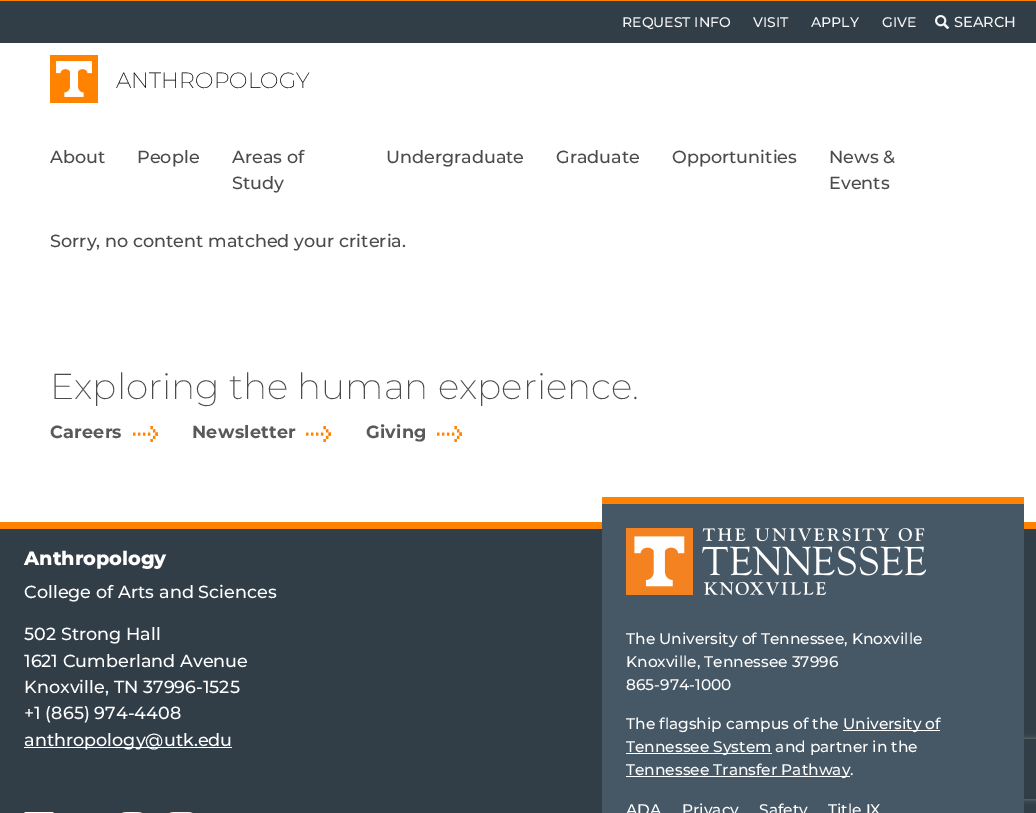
%!PS-Adobe-3.0
%%BoundingBox: 0 0 1036 813
%%LanguageLevel: 3
%%Pages: 1
%%EndComments
%%BeginProlog
/setink { 3 { 255 div 3 1 roll } repeat setrgbcolor } def
/usefont { [ exch dup neg 0 0 3 -1 roll 0 0 ] selectfont } def
/drawtext { setink usefont moveto show } def
/fillbox { setink rectfill } def
/setalpha { dup .setfillconstantalpha .setstrokeconstantalpha } def
/rrect { 5 dict begin { /r /h /w /y /x } { exch def } forall
  x r add y moveto x w add y 2 copy h add r arct x w add y h add x 1 index r arct
  x y h add x y r arct x y 2 copy exch w add exch r arct closepath end } def
/softshadow { 12 dict begin { /a /b /q /h /w /y /x } { exch def } forall gsave /was 0 def
  9 -2 -9 { dup b mul 4 div /e exch def 1 sub .425 mul 2.718 exch exp 1 add a .99 .min exch div /now exch def
    1 1 now sub 1 was sub div sub setalpha /was now def
    w h .min e 2 mul add 0 gt { x e sub y e sub w e 2 mul add h e 2 mul add
      q e add b .6 mul add w h .min 2 div e add .min 0 .max rrect fill } if } for grestore end } def
/drawimage { 5 dict begin { /h /w /y /x /name } { exch def } forall
  gsave x y translate w h scale
  w h 8 [w 0 0 h 0 0] name (r) file false 3 colorimage grestore end } def
%%EndProlog
%%BeginSetup
<< /PageSize [1036 813] /PageUsesTransparency true >> setpagedevice
%%EndSetup
%%Page: 1 1
0 .pushpdf14devicefilter
0 813 translate 1 -1 scale
4 setmiterlimit
0 0 1036 813 255 255 255 fillbox
0 1 1036 42 49 62 72 fillbox
0 0 1036 1 255 130 0 fillbox
(REQUEST INFO) 622 27 /Montserrat-Medium 14 246 246 246 drawtext
(VISIT) 753 27 /Montserrat-Medium 14 246 246 246 drawtext
(APPLY) 811 27 /Montserrat-Medium 14 246 246 246 drawtext
(GIVE) 882 27 /Montserrat-Medium 14 246 246 246 drawtext
(assets/img1.rgb) 935 15 15 14 drawimage
(SEARCH) 954 27 /Montserrat-Medium 14.5 246 246 246 drawtext
(assets/img2.rgb) 50 55 48 48 drawimage
(ANTHROPOLOGY) 116 88 /Montserrat-ExtraLight 22 0 0 0 drawtext
(About) 50 163 /Montserrat-Medium 17.6 75 75 75 drawtext
(People) 137 163 /Montserrat-Medium 17.6 75 75 75 drawtext
(Areas of) 232 163 /Montserrat-Medium 17.6 75 75 75 drawtext
(Study) 232 189 /Montserrat-Medium 17.6 75 75 75 drawtext
(Undergraduate) 386 163 /Montserrat-Medium 17.6 75 75 75 drawtext
(Graduate) 556 163 /Montserrat-Medium 17.6 75 75 75 drawtext
(Opportunities) 672 163 /Montserrat-Medium 17.6 75 75 75 drawtext
(News &) 829 163 /Montserrat-Medium 17.6 75 75 75 drawtext
(Events) 829 189 /Montserrat-Medium 17.6 75 75 75 drawtext
(Sorry, no content matched your criteria.) 50 247 /Montserrat-Medium 17.6 75 75 75 drawtext
(Exploring the human experience.) 50 399 /Montserrat-ExtraLight 36 75 75 75 drawtext
/Montserrat-Bold 17.6 usefont
88 89 91 setink
50 438 moveto 0.25 0 (Careers) ashow
(assets/img3.rgb) 133 426 25 16 drawimage
192 438 moveto 0.25 0 (Newsletter) ashow
(assets/img3.rgb) 306 426 25 16 drawimage
366 438 moveto 0.25 0 (Giving) ashow
(assets/img3.rgb) 437 426 25 16 drawimage
0 529 1036 284 49 62 72 fillbox
0 522 1036 7 255 130 0 fillbox
(Anthropology) 24 565 /Montserrat-ExtraBold 19.25 255 255 255 drawtext
(College of Arts and Sciences) 24 598 /Montserrat-Medium 17.6 255 255 255 drawtext
(502 Strong Hall) 24 640 /Montserrat-Medium 17.6 255 255 255 drawtext
(1621 Cumberland Avenue) 24 667 /Montserrat-Medium 17.6 255 255 255 drawtext
(Knoxville, TN 37996-1525) 24 693 /Montserrat-Medium 17.6 255 255 255 drawtext
(+1 \(865\) 974-4408) 24 719 /Montserrat-Medium 17.6 255 255 255 drawtext
24 747 208 1 255 255 255 fillbox
(anthropology@utk.edu) 24 746 /Montserrat-Medium 17.6 255 255 255 drawtext
(assets/img4.rgb) 24 812 30 1 drawimage
(assets/img5.rgb) 122 812 20 1 drawimage
(assets/img6.rgb) 169 812 24 1 drawimage
gsave
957 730 moveto 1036 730 lineto 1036 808 lineto 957 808 lineto closepath 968 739 moveto 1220 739 lineto 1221 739 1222 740 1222 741 curveto 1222 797 lineto 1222 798 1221 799 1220 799 curveto 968 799 lineto 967 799 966 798 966 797 curveto 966 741 lineto 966 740 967 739 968 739 curveto closepath eoclip newpath
128 128 128 setink
966 739 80 60 2 2.5 1 softshadow
grestore
602 504 422 309 70 88 102 fillbox
602 497 422 7 255 130 0 fillbox
(assets/img7.rgb) 626 528 300 67 drawimage
(The University of Tennessee, Knoxville) 626 644 /Montserrat-Medium 15.4 255 255 255 drawtext
(Knoxville, Tennessee 37996) 626 667 /Montserrat-Medium 15.4 255 255 255 drawtext
(865-974-1000) 626 690 /Montserrat-Medium 15.4 255 255 255 drawtext
(The flagship campus of the) 626 729 /Montserrat-Medium 15.4 255 255 255 drawtext
843 730 97 1 255 255 255 fillbox
(University of) 843 729 /Montserrat-Medium 15.4 255 255 255 drawtext
626 753 146 1 255 255 255 fillbox
(Tennessee System and partner in the) 626 752 /Montserrat-Medium 15.4 255 255 255 drawtext
626 776 224 1 255 255 255 fillbox
(Tennessee Transfer Pathway.) 626 775 /Montserrat-Medium 15.4 255 255 255 drawtext
(ADA) 626 815 /Montserrat-Medium 15.4 255 255 255 drawtext
(Privacy) 682 815 /Montserrat-Medium 15.4 255 255 255 drawtext
(Safety) 759 815 /Montserrat-Medium 15.4 255 255 255 drawtext
(Title IX) 828 815 /Montserrat-Medium 15.4 255 255 255 drawtext
.poppdf14devicefilter showpage
%%EOF
